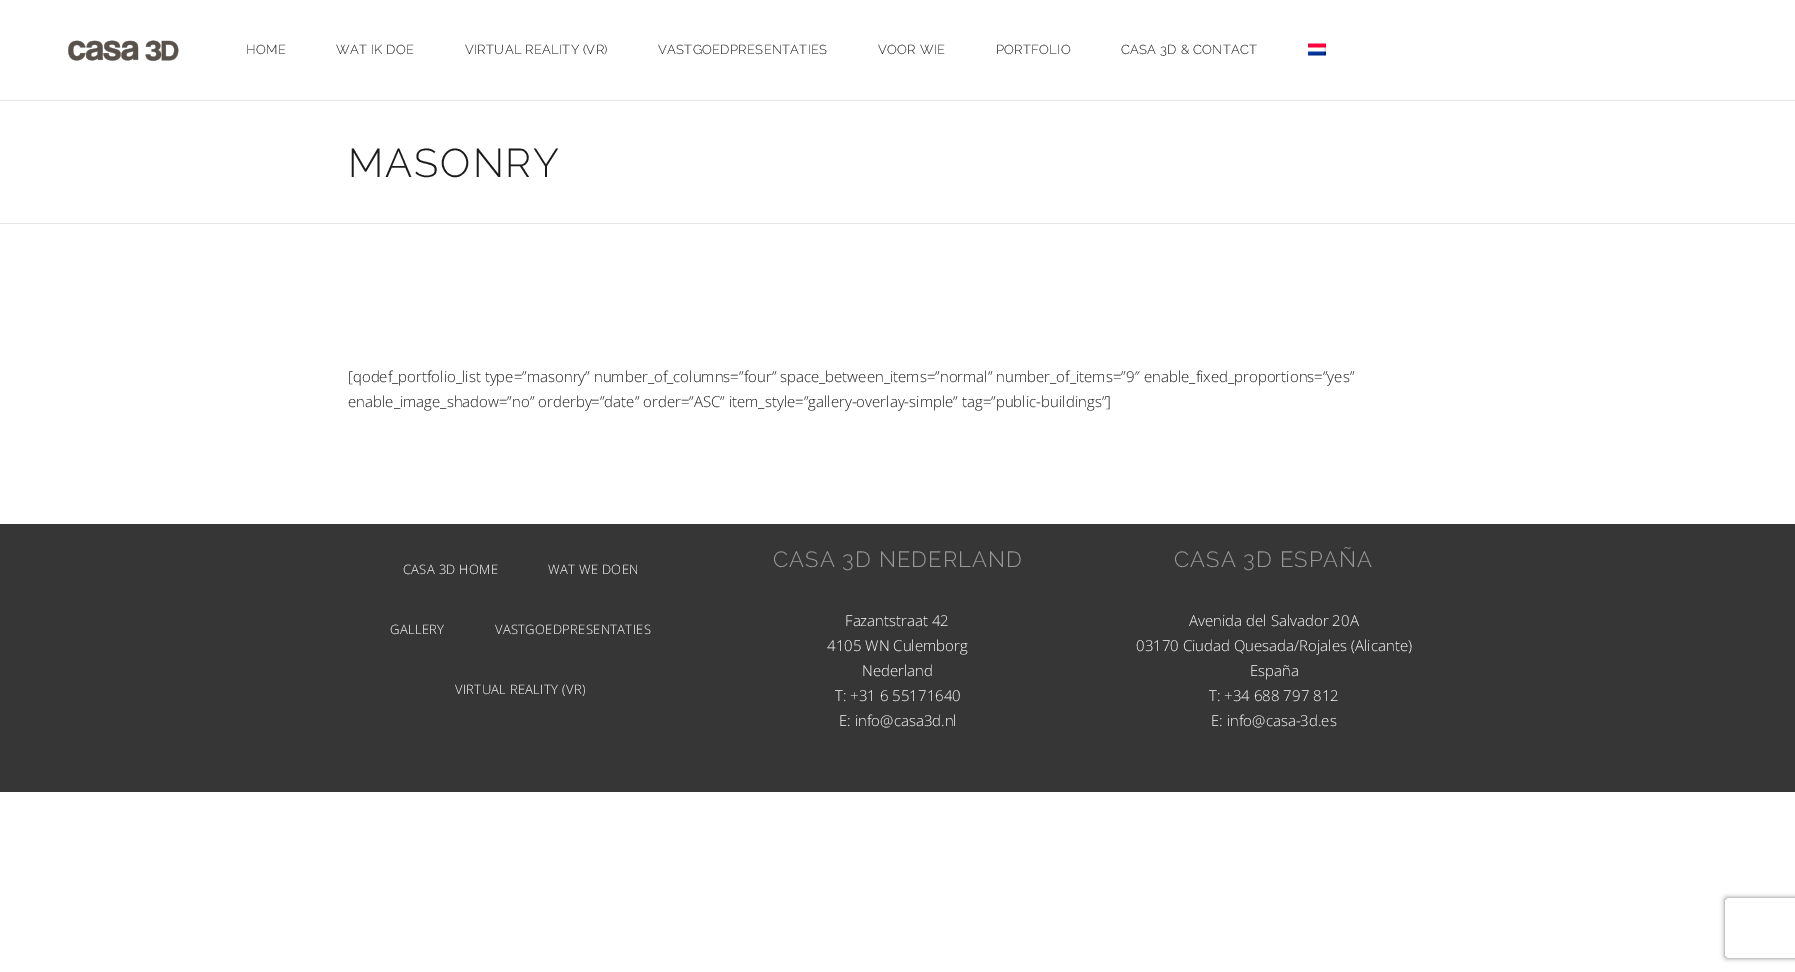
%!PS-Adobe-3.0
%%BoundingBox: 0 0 1795 972
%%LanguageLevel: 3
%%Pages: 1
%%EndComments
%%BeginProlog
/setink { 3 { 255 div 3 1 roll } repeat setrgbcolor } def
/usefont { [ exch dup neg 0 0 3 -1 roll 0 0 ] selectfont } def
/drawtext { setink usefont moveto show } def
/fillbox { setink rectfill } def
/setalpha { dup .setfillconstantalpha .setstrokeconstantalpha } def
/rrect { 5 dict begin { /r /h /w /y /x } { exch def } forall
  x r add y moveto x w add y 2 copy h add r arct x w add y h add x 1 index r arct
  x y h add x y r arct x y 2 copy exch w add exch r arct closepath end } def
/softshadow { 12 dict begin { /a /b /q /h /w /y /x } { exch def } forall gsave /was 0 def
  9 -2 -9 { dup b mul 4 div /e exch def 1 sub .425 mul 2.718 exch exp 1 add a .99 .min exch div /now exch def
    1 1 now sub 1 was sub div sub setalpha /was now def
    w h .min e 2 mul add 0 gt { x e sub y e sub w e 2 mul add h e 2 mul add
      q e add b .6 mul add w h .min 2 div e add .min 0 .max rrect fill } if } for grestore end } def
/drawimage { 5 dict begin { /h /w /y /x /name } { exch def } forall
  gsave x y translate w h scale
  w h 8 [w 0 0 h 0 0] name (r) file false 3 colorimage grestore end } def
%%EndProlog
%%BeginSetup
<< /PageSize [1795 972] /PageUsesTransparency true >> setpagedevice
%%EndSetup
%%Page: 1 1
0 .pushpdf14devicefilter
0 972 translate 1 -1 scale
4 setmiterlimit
0 0 1795 972 255 255 255 fillbox
(assets/img1.rgb) 68 40 111 21 drawimage
/Raleway-Light 13 usefont
27 27 27 setink
246 54 moveto 0.3 0 (HOME) ashow
336 54 moveto 0.3 0 (WAT IK DOE) ashow
465 54 moveto 0.3 0 (VIRTUAL REALITY \(VR\)) ashow
658 54 moveto 0.3 0 (VASTGOEDPRESENTATIES) ashow
878 54 moveto 0.3 0 (VOOR WIE) ashow
996 54 moveto 0.3 0 (PORTFOLIO) ashow
1121 54 moveto 0.3 0 (CASA 3D & CONTACT) ashow
(assets/img2.rgb) 1308 43 18 13 drawimage
0 100 1795 1 229 229 229 fillbox
0 223 1795 1 229 229 229 fillbox
/Raleway-Light 40 usefont
27 27 27 setink
348 177 moveto 2 0 (MASONRY) ashow
([qodef_portfolio_list type=”masonry” number_of_columns=”four” space_between_items=”normal” number_of_items=”9″ enable_fixed_proportions=”yes”) 348 382 /OpenSans-Light 15 27 27 27 drawtext
(enable_image_shadow=”no” orderby=”date” order=”ASC” item_style=”gallery-overlay-simple” tag=”public-buildings”]) 348 407 /OpenSans-Light 15 27 27 27 drawtext
0 524 1795 268 54 54 54 fillbox
/OpenSans-Light 13 usefont
255 255 255 setink
403 574 moveto 0.3 0 (CASA 3D HOME) ashow
548 574 moveto 0.3 0 (WAT WE DOEN) ashow
390 634 moveto 0.3 0 (GALLERY) ashow
495 634 moveto 0.3 0 (VASTGOEDPRESENTATIES) ashow
455 694 moveto 0.3 0 (VIRTUAL REALITY \(VR\)) ashow
/Raleway-Light 22 usefont
153 153 153 setink
773 567 moveto 1.1 0 (CASA 3D NEDERLAND) ashow
(Fazantstraat 42) 845 626 /OpenSans-Light 15 255 255 255 drawtext
(4105 WN Culemborg) 827 651 /OpenSans-Light 15 255 255 255 drawtext
(Nederland) 862 676 /OpenSans-Light 15 255 255 255 drawtext
(T: +31 6 55171640) 835 701 /OpenSans-Light 15 255 255 255 drawtext
(E: info@casa3d.nl) 839 726 /OpenSans-Light 15 255 255 255 drawtext
/Raleway-Light 22 usefont
153 153 153 setink
1174 567 moveto 1.1 0 (CASA 3D ESPAÑA) ashow
(Avenida del Salvador 20A) 1189 626 /OpenSans-Light 15 255 255 255 drawtext
(03170 Ciudad Quesada/Rojales \(Alicante\)) 1136 651 /OpenSans-Light 15 255 255 255 drawtext
(España) 1250 676 /OpenSans-Light 15 255 255 255 drawtext
(T: +34 688 797 812) 1209 701 /OpenSans-Light 15 255 255 255 drawtext
(E: info@casa-3d.es) 1211 726 /OpenSans-Light 15 255 255 255 drawtext
gsave
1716 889 moveto 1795 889 lineto 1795 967 lineto 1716 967 lineto closepath 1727 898 moveto 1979 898 lineto 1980 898 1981 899 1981 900 curveto 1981 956 lineto 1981 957 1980 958 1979 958 curveto 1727 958 lineto 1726 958 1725 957 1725 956 curveto 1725 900 lineto 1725 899 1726 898 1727 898 curveto closepath eoclip newpath
128 128 128 setink
1725 898 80 60 2 2.5 1 softshadow
grestore
.poppdf14devicefilter showpage
%%EOF
